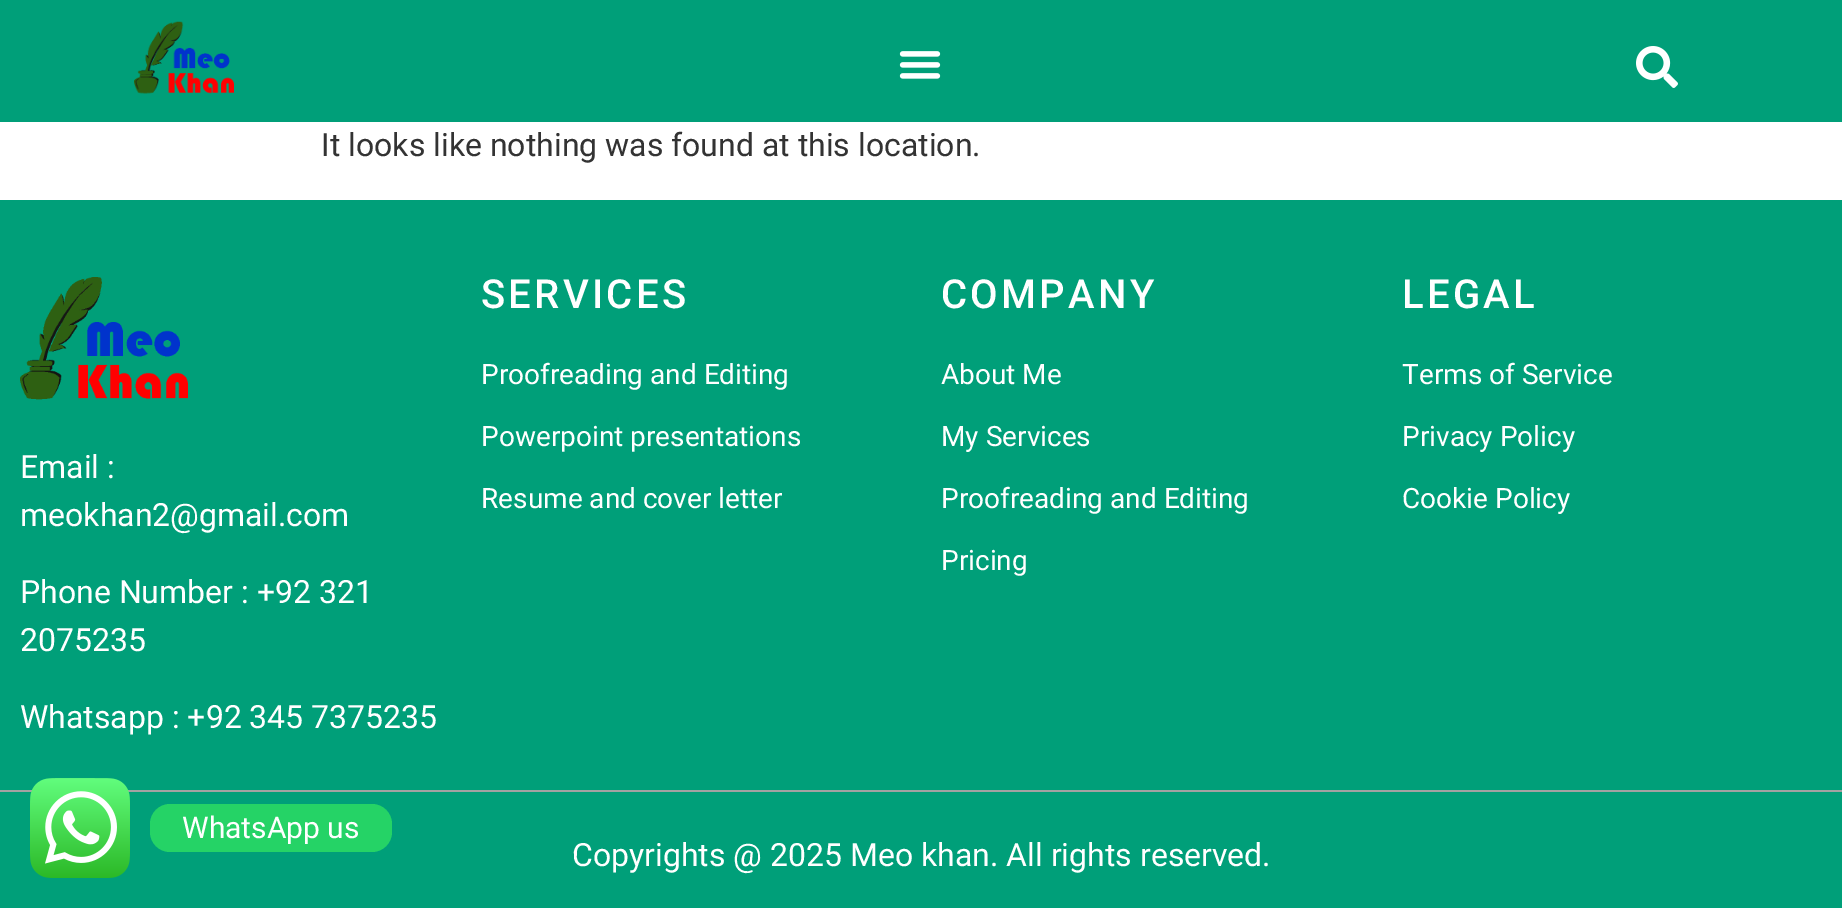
%!PS-Adobe-3.0
%%BoundingBox: 0 0 1842 908
%%LanguageLevel: 3
%%Pages: 1
%%EndComments
%%BeginProlog
/setink { 3 { 255 div 3 1 roll } repeat setrgbcolor } def
/usefont { [ exch dup neg 0 0 3 -1 roll 0 0 ] selectfont } def
/drawtext { setink usefont moveto show } def
/fillbox { setink rectfill } def
/rrect { 5 dict begin { /r /h /w /y /x } { exch def } forall
  x r add y moveto x w add y 2 copy h add r arct x w add y h add x 1 index r arct
  x y h add x y r arct x y 2 copy exch w add exch r arct closepath end } def
/drawimage { 5 dict begin { /h /w /y /x /name } { exch def } forall
  gsave x y translate w h scale
  w h 8 [w 0 0 h 0 0] name (r) file false 3 colorimage grestore end } def
%%EndProlog
%%BeginSetup
<< /PageSize [1842 908] >> setpagedevice
%%EndSetup
%%Page: 1 1
0 908 translate 1 -1 scale
4 setmiterlimit
0 0 1842 908 255 255 255 fillbox
0 0 1842 122 0 159 121 fillbox
(assets/img1.rgb) 134 21 100 73 drawimage
(assets/img2.rgb) 899 51 42 28 drawimage
(assets/img3.rgb) 1636 46 42 42 drawimage
(It looks like nothing was found at this location.) 321 156 /Roboto-Regular 32 51 51 51 drawtext
0 200 1842 590 0 159 121 fillbox
/Roboto-Medium 40 usefont
255 255 255 setink
481 308 moveto 3.25 0 (SERVICES) ashow
(Proofreading and Editing) 481 384 /Roboto-Regular 28 255 255 255 drawtext
(Powerpoint presentations) 481 446 /Roboto-Regular 28 255 255 255 drawtext
(Resume and cover letter) 481 508 /Roboto-Regular 28 255 255 255 drawtext
/Roboto-Medium 40 usefont
941 308 moveto 3.25 0 (COMPANY) ashow
(About Me) 941 384 /Roboto-Regular 28 255 255 255 drawtext
(My Services) 941 446 /Roboto-Regular 28 255 255 255 drawtext
(Proofreading and Editing) 941 508 /Roboto-Regular 28 255 255 255 drawtext
(Pricing) 941 570 /Roboto-Regular 28 255 255 255 drawtext
/Roboto-Medium 40 usefont
1402 308 moveto 3.25 0 (LEGAL) ashow
(Terms of Service) 1402 384 /Roboto-Regular 28 255 255 255 drawtext
(Privacy Policy) 1402 446 /Roboto-Regular 28 255 255 255 drawtext
(Cookie Policy) 1402 508 /Roboto-Regular 28 255 255 255 drawtext
(assets/img4.rgb) 20 277 168 123 drawimage
(Email :) 20 478 /Roboto-Regular 32 255 255 255 drawtext
(meokhan2@gmail.com) 20 526 /Roboto-Regular 32 255 255 255 drawtext
(Phone Number : +92 321) 20 603 /Roboto-Regular 32 255 255 255 drawtext
(2075235) 20 651 /Roboto-Regular 32 255 255 255 drawtext
(Whatsapp : +92 345 7375235) 20 728 /Roboto-Regular 32 255 255 255 drawtext
0 792 1842 116 0 159 121 fillbox
0 790 1842 2 162 162 162 fillbox
(Copyrights @ 2025 Meo khan. All rights reserved.) 572 866 /Roboto-Regular 32 255 255 255 drawtext
(assets/img5.rgb) 30 778 100 100 drawimage
37 211 102 setink
150 804 242 48 20 rrect fill
(WhatsApp us) 182 838 /Roboto-Regular 30 255 255 255 drawtext
showpage
%%EOF
